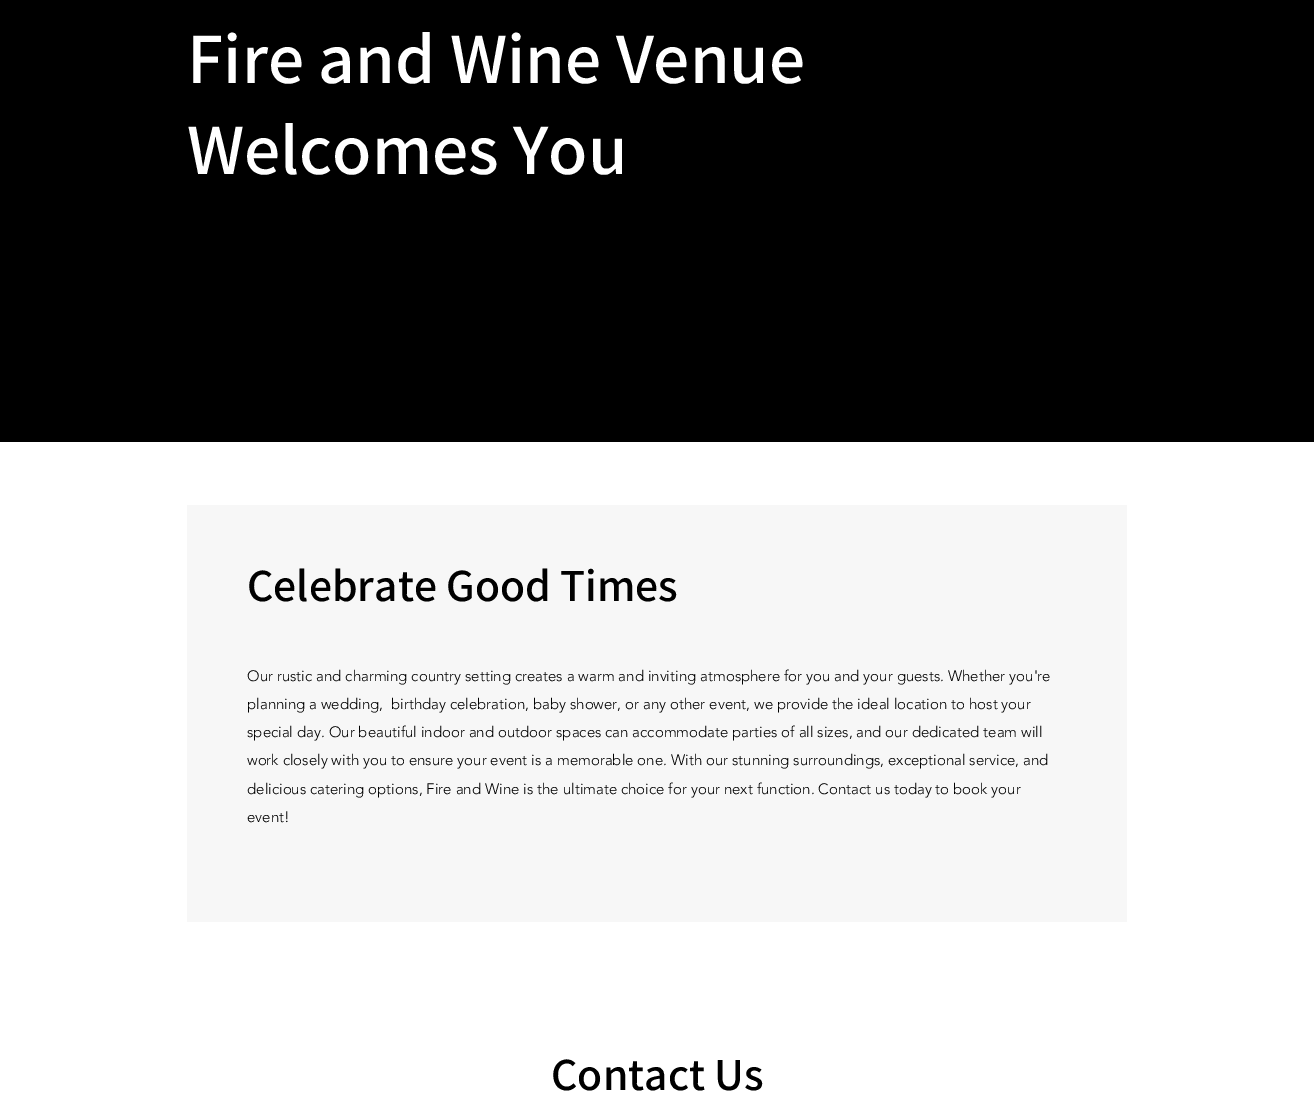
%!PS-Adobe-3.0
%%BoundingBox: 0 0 1314 1093
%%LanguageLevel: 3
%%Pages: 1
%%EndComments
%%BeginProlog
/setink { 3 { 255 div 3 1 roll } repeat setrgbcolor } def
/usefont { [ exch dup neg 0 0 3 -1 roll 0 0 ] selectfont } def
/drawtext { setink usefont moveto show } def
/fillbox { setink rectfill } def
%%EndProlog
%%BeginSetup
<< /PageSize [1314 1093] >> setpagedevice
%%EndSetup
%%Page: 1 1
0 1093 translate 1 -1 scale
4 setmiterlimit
0 0 1314 1093 255 255 255 fillbox
0 0 1314 442 0 0 0 fillbox
(Fire and Wine Venue) 187 83 /Assistant-SemiBold 72 255 255 255 drawtext
(Welcomes You) 187 174 /Assistant-SemiBold 72 255 255 255 drawtext
187 505 940 417 247 247 247 fillbox
(Celebrate Good Times) 247 601 /Assistant-SemiBold 46 0 0 0 drawtext
(Our rustic and charming country setting creates a warm and inviting atmosphere for you and your guests. Whether you're) 247 681 /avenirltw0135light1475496-Light 15 0 0 0 drawtext
(planning a wedding,  birthday celebration, baby shower, or any other event, we provide the ideal location to host your) 247 709 /avenirltw0135light1475496-Light 15 0 0 0 drawtext
(special day. Our beautiful indoor and outdoor spaces can accommodate parties of all sizes, and our dedicated team will) 247 737 /avenirltw0135light1475496-Light 15 0 0 0 drawtext
(work closely with you to ensure your event is a memorable one. With our stunning surroundings, exceptional service, and) 247 765 /avenirltw0135light1475496-Light 15 0 0 0 drawtext
(delicious catering options, Fire and Wine is the ultimate choice for your next function. Contact us today to book your) 247 794 /avenirltw0135light1475496-Light 15 0 0 0 drawtext
(event!) 247 822 /avenirltw0135light1475496-Light 15 0 0 0 drawtext
(Contact Us) 551 1090 /Assistant-SemiBold 46 0 0 0 drawtext
showpage
%%EOF
